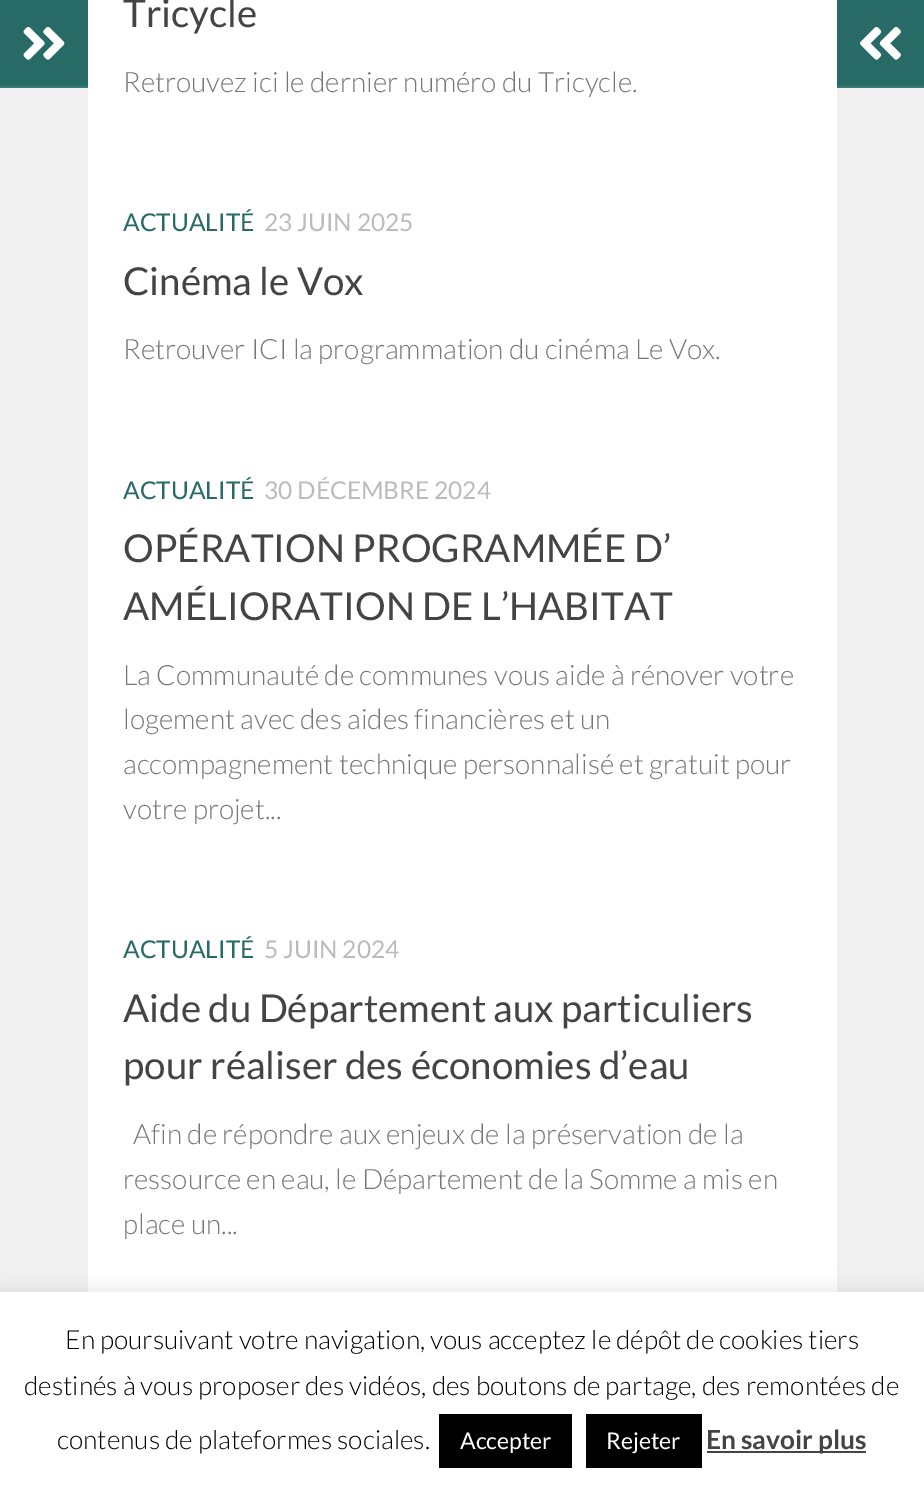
%!PS-Adobe-3.0
%%BoundingBox: 0 0 924 1488
%%LanguageLevel: 3
%%Pages: 1
%%EndComments
%%BeginProlog
/setink { 3 { 255 div 3 1 roll } repeat setrgbcolor } def
/usefont { [ exch dup neg 0 0 3 -1 roll 0 0 ] selectfont } def
/drawtext { setink usefont moveto show } def
/fillbox { setink rectfill } def
/setalpha { dup .setfillconstantalpha .setstrokeconstantalpha } def
/rrect { 5 dict begin { /r /h /w /y /x } { exch def } forall
  x r add y moveto x w add y 2 copy h add r arct x w add y h add x 1 index r arct
  x y h add x y r arct x y 2 copy exch w add exch r arct closepath end } def
/softshadow { 12 dict begin { /a /b /q /h /w /y /x } { exch def } forall gsave /was 0 def
  9 -2 -9 { dup b mul 4 div /e exch def 1 sub .425 mul 2.718 exch exp 1 add a .99 .min exch div /now exch def
    1 1 now sub 1 was sub div sub setalpha /was now def
    w h .min e 2 mul add 0 gt { x e sub y e sub w e 2 mul add h e 2 mul add
      q e add b .6 mul add w h .min 2 div e add .min 0 .max rrect fill } if } for grestore end } def
/drawimage { 5 dict begin { /h /w /y /x /name } { exch def } forall
  gsave x y translate w h scale
  w h 8 [w 0 0 h 0 0] name (r) file false 3 colorimage grestore end } def
%%EndProlog
%%BeginSetup
<< /PageSize [924 1488] /PageUsesTransparency true >> setpagedevice
%%EndSetup
%%Page: 1 1
0 .pushpdf14devicefilter
0 1488 translate 1 -1 scale
4 setmiterlimit
0 0 924 1488 255 255 255 fillbox
0 88 88 1204 240 240 240 fillbox
0 0 88 86 40 107 102 fillbox
0 86 88 2 62 122 117 fillbox
(assets/img1.rgb) 23 26 42 34 drawimage
(Tricycle) 123 27 /Lato-Regular 38.5 68 68 68 drawtext
(Retrouvez ici le dernier numéro du Tricycle.) 123 92 /Lato-Light 28 118 118 118 drawtext
(ACTUALITÉ) 123 231 /Lato-Regular 24.5 40 107 102 drawtext
(23 JUIN 2025) 264 231 /Lato-Regular 24.5 187 187 187 drawtext
(Cinéma le Vox) 123 295 /Lato-Regular 38.5 68 68 68 drawtext
(Retrouver ICI la programmation du cinéma Le Vox.) 123 359 /Lato-Light 28 118 118 118 drawtext
(ACTUALITÉ) 123 499 /Lato-Regular 24.5 40 107 102 drawtext
(30 DÉCEMBRE 2024) 264 499 /Lato-Regular 24.5 187 187 187 drawtext
(OPÉRATION PROGRAMMÉE D’) 123 562 /Lato-Regular 38.5 68 68 68 drawtext
(AMÉLIORATION DE L’HABITAT) 123 620 /Lato-Regular 38.5 68 68 68 drawtext
(La Communauté de communes vous aide à rénover votre) 123 685 /Lato-Light 28 118 118 118 drawtext
(logement avec des aides financières et un) 123 729 /Lato-Light 28 118 118 118 drawtext
(accompagnement technique personnalisé et gratuit pour) 123 774 /Lato-Light 28 118 118 118 drawtext
(votre projet...) 123 819 /Lato-Light 28 118 118 118 drawtext
(ACTUALITÉ) 123 958 /Lato-Regular 24.5 40 107 102 drawtext
(5 JUIN 2024) 264 958 /Lato-Regular 24.5 187 187 187 drawtext
(Aide du Département aux particuliers) 123 1022 /Lato-Regular 38.5 68 68 68 drawtext
(pour réaliser des économies d’eau) 123 1079 /Lato-Regular 38.5 68 68 68 drawtext
(Afin de répondre aux enjeux de la préservation de la) 133 1144 /Lato-Light 28 118 118 118 drawtext
(ressource en eau, le Département de la Somme a mis en) 123 1189 /Lato-Light 28 118 118 118 drawtext
(place un...) 123 1234 /Lato-Light 28 118 118 118 drawtext
837 0 87 86 40 107 102 fillbox
837 86 87 2 62 122 117 fillbox
(assets/img2.rgb) 860 26 41 34 drawimage
837 88 87 1204 240 240 240 fillbox
172 171 171 setink
0 1290 924 198 0 9 0.3 softshadow
0 1292 924 196 255 255 255 fillbox
(En poursuivant votre navigation, vous acceptez le dépôt de cookies tiers) 65 1349 /Lato-Light 26.25 0 0 0 drawtext
(destinés à vous proposer des vidéos, des boutons de partage, des remontées de) 24 1395 /Lato-Light 26.25 0 0 0 drawtext
(contenus de plateformes sociales.) 57 1449 /Lato-Light 26.25 0 0 0 drawtext
439 1414 133 54 0 0 0 fillbox
(Accepter) 460 1449 /Lato-Regular 23 255 255 255 drawtext
586 1414 116 54 0 0 0 fillbox
(Rejeter) 606 1449 /Lato-Regular 23 255 255 255 drawtext
707 1451 159 2 68 68 68 fillbox
(En savoir plus) 706 1449 /Lato-Bold 26.25 68 68 68 drawtext
.poppdf14devicefilter showpage
%%EOF
